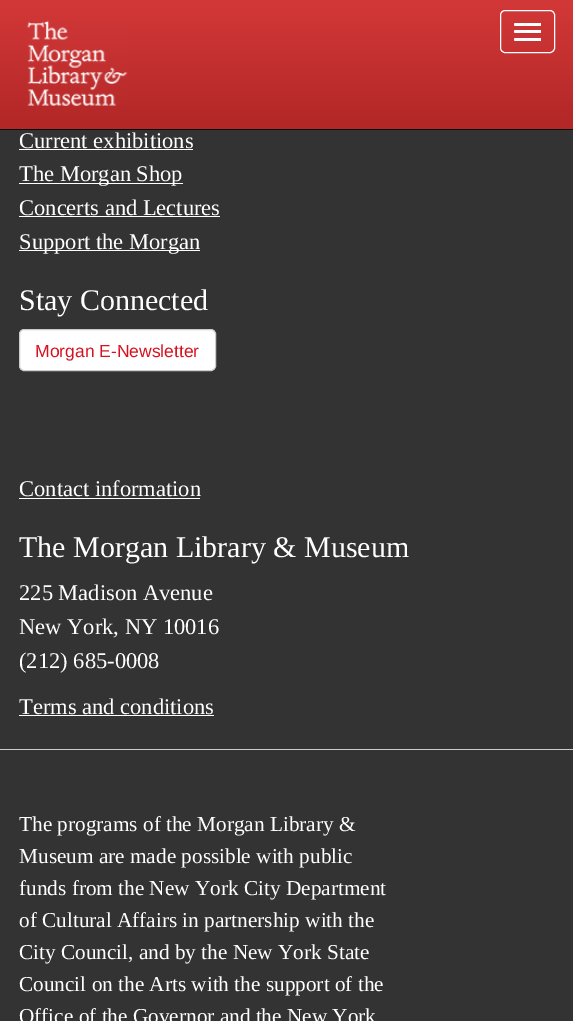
%!PS-Adobe-3.0
%%BoundingBox: 0 0 573 1021
%%LanguageLevel: 3
%%Pages: 1
%%EndComments
%%BeginProlog
/setink { 3 { 255 div 3 1 roll } repeat setrgbcolor } def
/usefont { [ exch dup neg 0 0 3 -1 roll 0 0 ] selectfont } def
/drawtext { setink usefont moveto show } def
/fillbox { setink rectfill } def
/rrect { 5 dict begin { /r /h /w /y /x } { exch def } forall
  x r add y moveto x w add y 2 copy h add r arct x w add y h add x 1 index r arct
  x y h add x y r arct x y 2 copy exch w add exch r arct closepath end } def
/drawimage { 5 dict begin { /h /w /y /x /name } { exch def } forall
  gsave x y translate w h scale
  w h 8 [w 0 0 h 0 0] name (r) file false 3 colorimage grestore end } def
%%EndProlog
%%BeginSetup
<< /PageSize [573 1021] >> setpagedevice
%%EndSetup
%%Page: 1 1
0 1021 translate 1 -1 scale
4 setmiterlimit
0 0 573 1021 51 51 51 fillbox
gsave 0 0 moveto 573 0 lineto 573 129 lineto 0 129 lineto closepath clip newpath
<< /ShadingType 2 /ColorSpace /DeviceRGB /Coords [287 0 287 129] /Extend [true true] /Function << /FunctionType 2 /Domain [0 1] /C0 [0.827 0.22 0.22] /C1 [0.698 0.153 0.153] /N 1 >> >> shfill grestore
0 129 573 1 9 9 9 fillbox
(assets/img1.rgb) 27 20 101 86 drawimage
255 255 255 setink
500.5 10.5 54 42 4.5 rrect stroke
514 23 27 3 1.5 rrect fill
515 23 26 3 255 255 255 fillbox
514 30 27 3 1.5 rrect fill
515 30 26 3 255 255 255 fillbox
514 38 27 3 1.5 rrect fill
515 38 26 3 255 255 255 fillbox
(Current exhibitions) 19 148 /LiberationSerif-Regular 22.5 255 255 255 drawtext
19 149 174 1 255 255 255 fillbox
19 183 164 1 255 255 255 fillbox
(The Morgan Shop) 19 181 /LiberationSerif-Regular 22.5 255 255 255 drawtext
(Concerts and Lectures) 19 215 /LiberationSerif-Regular 22.5 255 255 255 drawtext
19 216 201 1 255 255 255 fillbox
19 250 181 1 255 255 255 fillbox
(Support the Morgan) 19 249 /LiberationSerif-Regular 22.5 255 255 255 drawtext
(Stay Connected) 19 310 /LiberationSerif-Regular 30 255 255 255 drawtext
19.5 329.5 196 41 4.5 rrect gsave fill grestore
204 204 204 setink
stroke
(Morgan E-Newsletter) 35 357 /LiberationSans-Regular 17.5 214 18 31 drawtext
(Contact information) 19 496 /LiberationSerif-Regular 22.5 255 255 255 drawtext
19 498 181 1 255 255 255 fillbox
(The Morgan Library & Museum) 19 557 /LiberationSerif-Regular 30 255 255 255 drawtext
(225 Madison Avenue) 19 600 /LiberationSerif-Regular 22.5 255 255 255 drawtext
(New York, NY 10016) 19 634 /LiberationSerif-Regular 22.5 255 255 255 drawtext
(\(212\) 685-0008) 19 668 /LiberationSerif-Regular 22.5 255 255 255 drawtext
(Terms and conditions) 19 714 /LiberationSerif-Regular 22.5 255 255 255 drawtext
19 715 195 1 255 255 255 fillbox
0 749 573 1 204 204 204 fillbox
(The programs of the Morgan Library &) 19 831 /LiberationSerif-Regular 21.25 255 255 255 drawtext
(Museum are made possible with public) 19 863 /LiberationSerif-Regular 21.25 255 255 255 drawtext
(funds from the New York City Department) 19 895 /LiberationSerif-Regular 21.25 255 255 255 drawtext
(of Cultural Affairs in partnership with the) 19 927 /LiberationSerif-Regular 21.25 255 255 255 drawtext
(City Council, and by the New York State) 19 959 /LiberationSerif-Regular 21.25 255 255 255 drawtext
(Council on the Arts with the support of the) 19 991 /LiberationSerif-Regular 21.25 255 255 255 drawtext
(Office of the Governor and the New York) 19 1023 /LiberationSerif-Regular 21.25 255 255 255 drawtext
showpage
%%EOF
